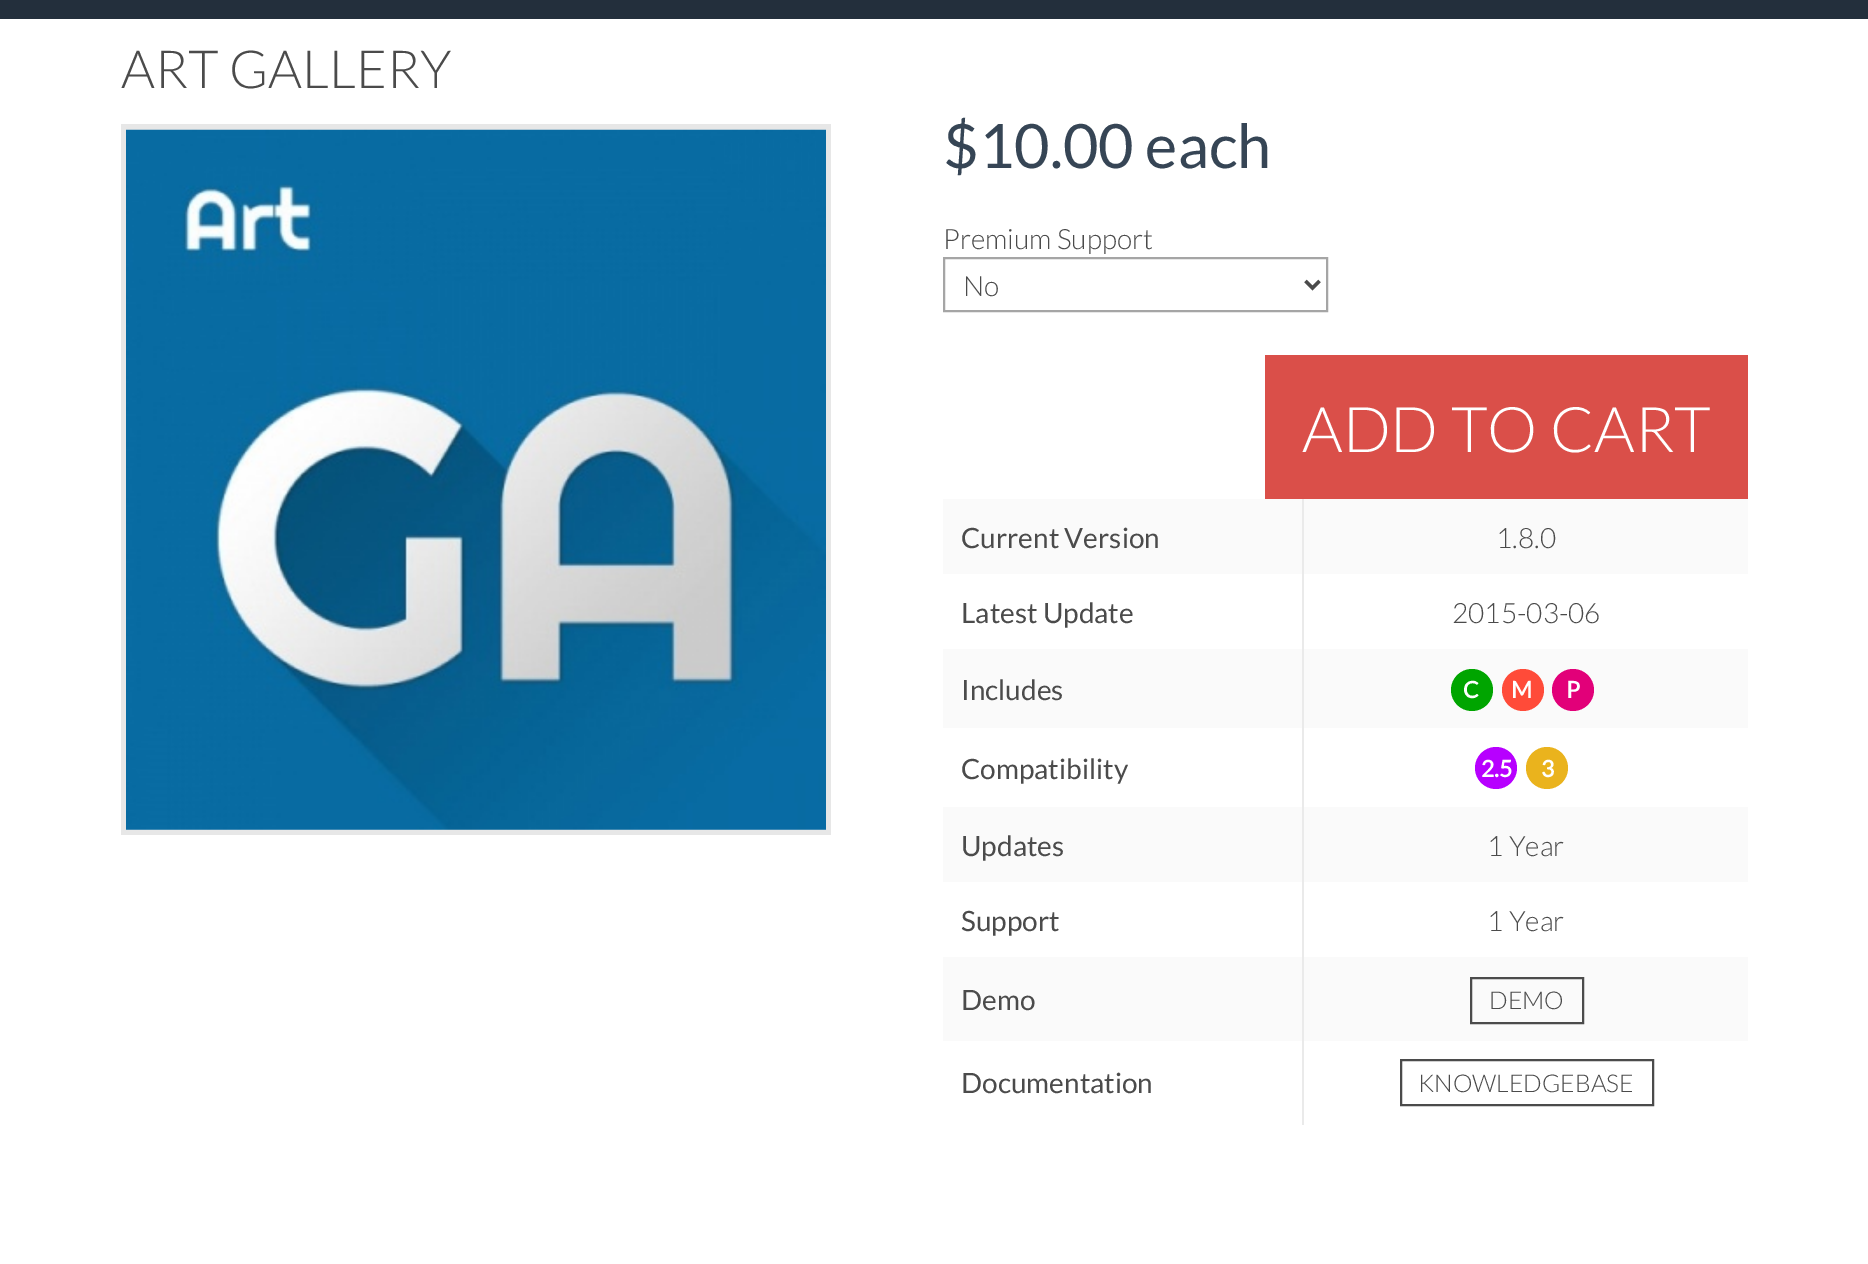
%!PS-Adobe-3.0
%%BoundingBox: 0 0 1868 1264
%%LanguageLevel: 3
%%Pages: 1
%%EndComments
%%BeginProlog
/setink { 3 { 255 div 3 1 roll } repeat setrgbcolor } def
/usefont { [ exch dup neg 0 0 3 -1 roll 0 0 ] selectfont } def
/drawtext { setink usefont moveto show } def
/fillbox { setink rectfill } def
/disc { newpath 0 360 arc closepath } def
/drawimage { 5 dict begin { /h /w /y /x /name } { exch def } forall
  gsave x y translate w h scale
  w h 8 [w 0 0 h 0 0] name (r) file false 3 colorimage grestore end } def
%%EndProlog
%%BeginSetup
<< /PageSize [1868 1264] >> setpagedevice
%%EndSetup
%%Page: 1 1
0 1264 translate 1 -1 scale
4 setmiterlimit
0 0 1868 1264 255 255 255 fillbox
0 0 1868 19 35 47 60 fillbox
(ART GALLERY) 121 88 /Lato-Light 52.5 75 75 75 drawtext
121 124 710 711 231 231 231 fillbox
(assets/img1.rgb) 126 129 700 701 drawimage
($10.00 each) 943 168 /Lato-Regular 61.25 54 69 85 drawtext
(Premium Support) 943 249 /Lato-Light 28 75 75 75 drawtext
165 165 165 setink
2 setlinewidth
944 258 383 53 rectstroke
75 75 75 setink
3.5 setlinewidth
1305.5 281 moveto 1312.5 288 lineto 1319.5 281 lineto stroke
(No) 963 296 /Lato-Light 28 75 75 75 drawtext
1265 355 483 144 218 79 73 fillbox
(ADD TO CART) 1302 452 /Lato-Light 63 255 255 255 drawtext
943 499 805 75 250 250 250 fillbox
(Current Version) 961 548 /Lato-Regular 28 75 75 75 drawtext
(1.8.0) 1496 548 /Lato-Light 28 75 75 75 drawtext
(Latest Update) 961 623 /Lato-Regular 28 75 75 75 drawtext
(2015-03-06) 1452 623 /Lato-Light 28 75 75 75 drawtext
943 649 805 79 250 250 250 fillbox
(Includes) 961 700 /Lato-Regular 28 75 75 75 drawtext
0 165 0 setink
1472 690 21 disc fill
(C) 1463 698 /Lato-Bold 23 255 255 255 drawtext
255 75 57 setink
1523 690 21 disc fill
(M) 1511 698 /Lato-Bold 23 255 255 255 drawtext
226 0 121 setink
1573 690 21 disc fill
(P) 1566 698 /Lato-Bold 23 255 255 255 drawtext
(Compatibility) 961 779 /Lato-Regular 28 75 75 75 drawtext
183 0 255 setink
1496 768 21 disc fill
(2.5) 1481 777 /Lato-Bold 23 255 255 255 drawtext
234 179 29 setink
1547 768 21 disc fill
(3) 1541 777 /Lato-Bold 23 255 255 255 drawtext
943 807 805 75 250 250 250 fillbox
(Updates) 961 856 /Lato-Regular 28 75 75 75 drawtext
(1 Year) 1487 856 /Lato-Light 28 75 75 75 drawtext
(Support) 961 931 /Lato-Regular 28 75 75 75 drawtext
(1 Year) 1487 931 /Lato-Light 28 75 75 75 drawtext
943 957 805 84 250 250 250 fillbox
(Demo) 961 1010 /Lato-Regular 28 75 75 75 drawtext
2 setlinewidth
1471 978 112 45 rectstroke
(DEMO) 1489 1009 /Lato-Light 24.5 75 75 75 drawtext
(Documentation) 961 1093 /Lato-Regular 28 75 75 75 drawtext
1302 499 2 626 234 234 234 fillbox
75 75 75 setink
1401 1060 252 45 rectstroke
(KNOWLEDGEBASE) 1418 1092 /Lato-Light 24.5 75 75 75 drawtext
showpage
%%EOF
